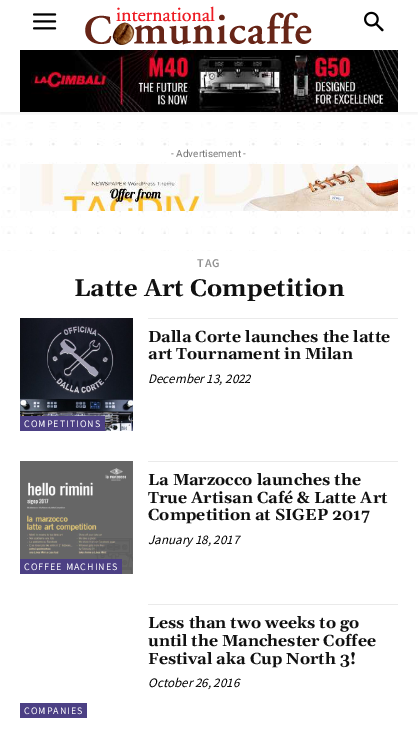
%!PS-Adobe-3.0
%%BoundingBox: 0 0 418 741
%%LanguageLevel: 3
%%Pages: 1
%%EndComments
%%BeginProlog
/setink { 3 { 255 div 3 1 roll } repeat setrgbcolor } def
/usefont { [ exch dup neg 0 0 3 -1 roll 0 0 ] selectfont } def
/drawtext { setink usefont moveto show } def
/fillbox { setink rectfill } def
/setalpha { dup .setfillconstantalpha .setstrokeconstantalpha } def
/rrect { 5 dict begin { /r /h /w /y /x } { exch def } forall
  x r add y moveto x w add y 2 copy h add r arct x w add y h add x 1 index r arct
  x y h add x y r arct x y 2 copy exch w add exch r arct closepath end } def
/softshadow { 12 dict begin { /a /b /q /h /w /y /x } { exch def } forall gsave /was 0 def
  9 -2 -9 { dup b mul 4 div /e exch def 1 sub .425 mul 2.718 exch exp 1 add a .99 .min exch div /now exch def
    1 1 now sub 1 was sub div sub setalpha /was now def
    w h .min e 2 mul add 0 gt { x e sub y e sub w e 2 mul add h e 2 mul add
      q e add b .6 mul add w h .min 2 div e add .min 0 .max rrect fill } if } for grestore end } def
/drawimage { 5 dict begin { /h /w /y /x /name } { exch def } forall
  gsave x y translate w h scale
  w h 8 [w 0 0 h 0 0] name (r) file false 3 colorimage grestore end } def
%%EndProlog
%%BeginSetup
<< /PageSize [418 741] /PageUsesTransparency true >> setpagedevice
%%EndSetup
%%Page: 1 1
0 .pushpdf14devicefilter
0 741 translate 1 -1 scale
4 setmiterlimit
0 0 418 741 255 255 255 fillbox
(assets/img1.rgb) 33 13 24 17 drawimage
(assets/img2.rgb) 85 6 227 39 drawimage
(assets/img3.rgb) 364 11 20 21 drawimage
(assets/img4.rgb) 20 50 378 62 drawimage
gsave
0 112 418 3 rectclip
0 0 0 setink
0 2 418 112 0 2 0.06 softshadow
grestore
(assets/img5.rgb) 1 122 414 129 drawimage
(- Advertisement -) 171 157 /Roboto-Regular 10 118 118 118 drawtext
(assets/img6.rgb) 20 164 378 47 drawimage
/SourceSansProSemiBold-SemiBold 12 usefont
145 145 145 setink
197 267 moveto 1 0 (TAG) ashow
(Latte Art Competition) 74 296 /Gelasio-Bold 24 17 17 17 drawtext
148 318 250 1 234 234 234 fillbox
(Dalla Corte launches the latte) 148 342 /Gelasio-Bold 16 17 17 17 drawtext
(art Tournament in Milan) 148 359 /Gelasio-Bold 16 17 17 17 drawtext
(December 13, 2022) 148 383 /SourceSansPro-Italic 13 0 0 0 drawtext
(assets/img7.rgb) 20 318 113 113 drawimage
20 416 85 15 76 64 132 fillbox
/SourceSansPro-Regular 10 usefont
255 255 255 setink
24 427 moveto 1 0 (COMPETITIONS) ashow
148 461 250 1 234 234 234 fillbox
(La Marzocco launches the) 148 485 /Gelasio-Bold 16 17 17 17 drawtext
(True Artisan Café & Latte Art) 148 503 /Gelasio-Bold 16 17 17 17 drawtext
(Competition at SIGEP 2017) 148 520 /Gelasio-Bold 16 17 17 17 drawtext
(January 18, 2017) 148 544 /SourceSansPro-Italic 13 0 0 0 drawtext
(assets/img8.rgb) 20 461 113 113 drawimage
20 559 102 15 76 64 132 fillbox
/SourceSansPro-Regular 10 usefont
255 255 255 setink
24 570 moveto 1 0 (COFFEE MACHINES) ashow
148 604 250 1 234 234 234 fillbox
(Less than two weeks to go) 148 628 /Gelasio-Bold 16 17 17 17 drawtext
(until the Manchester Coffee) 148 646 /Gelasio-Bold 16 17 17 17 drawtext
(Festival aka Cup North 3!) 148 664 /Gelasio-Bold 16 17 17 17 drawtext
(October 26, 2016) 148 687 /SourceSansPro-Italic 13 0 0 0 drawtext
20 703 67 15 76 64 132 fillbox
/SourceSansPro-Regular 10 usefont
255 255 255 setink
24 714 moveto 1 0 (COMPANIES) ashow
.poppdf14devicefilter showpage
%%EOF
